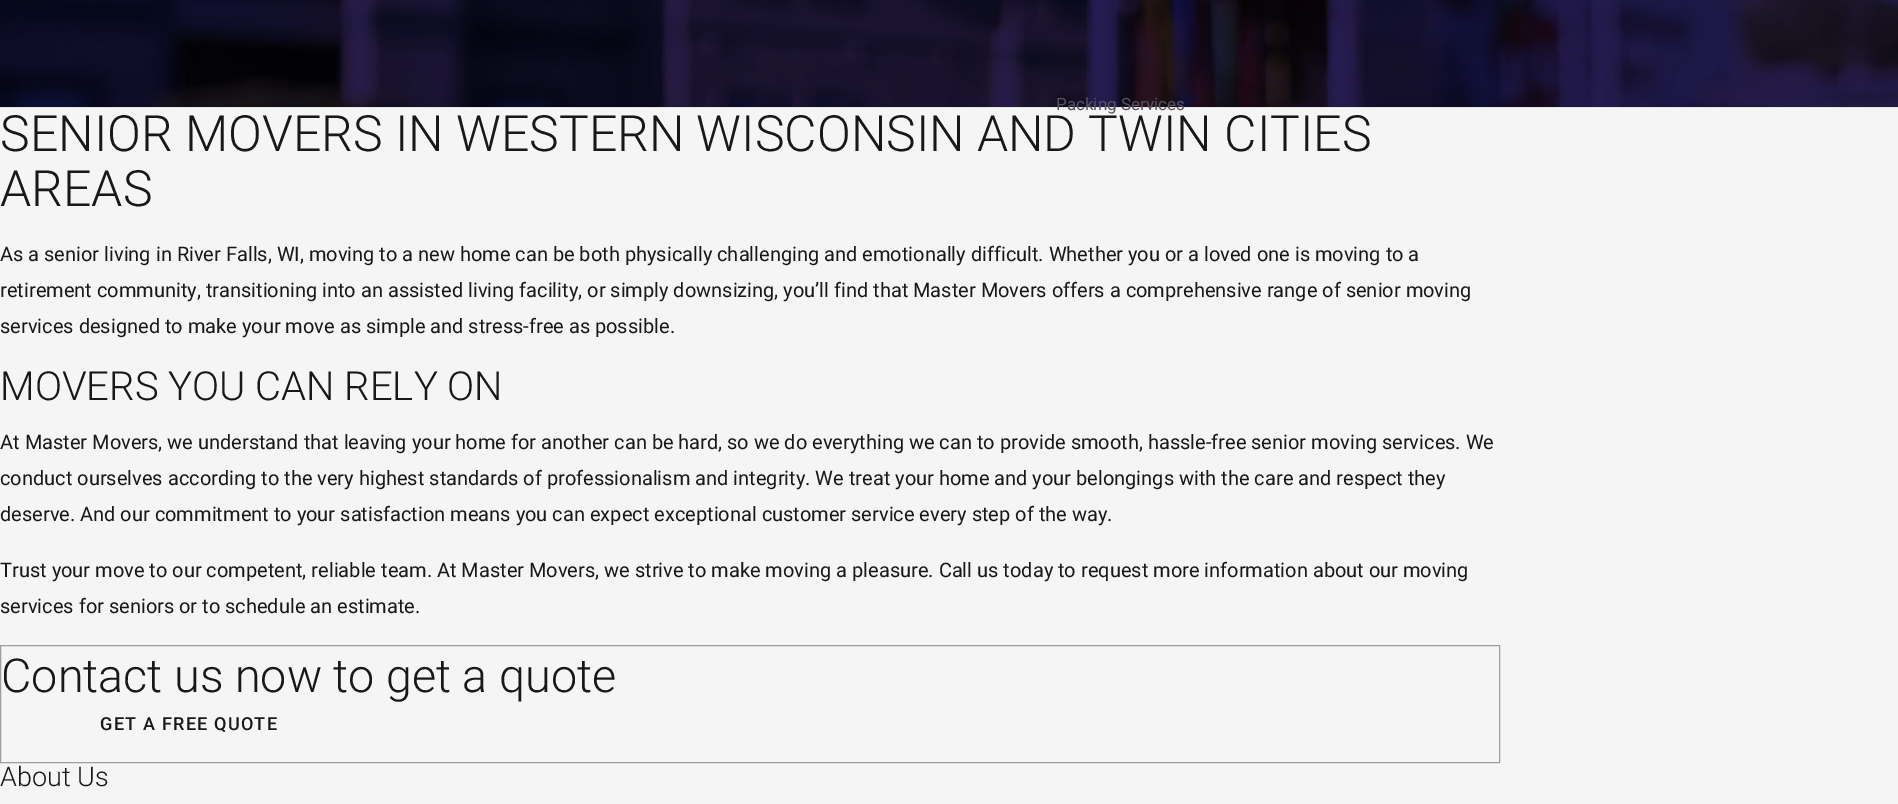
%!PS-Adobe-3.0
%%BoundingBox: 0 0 1898 804
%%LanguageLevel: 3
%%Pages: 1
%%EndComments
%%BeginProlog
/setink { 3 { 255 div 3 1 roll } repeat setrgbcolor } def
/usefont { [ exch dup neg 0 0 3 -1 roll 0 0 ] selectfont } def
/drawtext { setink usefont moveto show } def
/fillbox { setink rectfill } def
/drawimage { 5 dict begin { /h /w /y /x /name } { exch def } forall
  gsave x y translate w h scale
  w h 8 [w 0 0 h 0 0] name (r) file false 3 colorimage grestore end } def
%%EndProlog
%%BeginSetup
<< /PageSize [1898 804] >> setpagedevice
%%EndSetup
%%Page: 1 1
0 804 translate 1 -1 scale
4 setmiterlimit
0 0 1898 804 245 245 245 fillbox
0 107 1898 1 227 227 227 fillbox
(assets/img1.rgb) 0 0 1898 107 drawimage
(Packing Services) 1056 110 /Roboto-Regular 17 88 82 97 drawtext
(SENIOR MOVERS IN WESTERN WISCONSIN AND TWIN CITIES) 0 151 /Roboto-Light 50 24 24 24 drawtext
(AREAS) 0 206 /Roboto-Light 50 24 24 24 drawtext
(As a senior living in River Falls, WI, moving to a new home can be both physically challenging and emotionally difficult. Whether you or a loved one is moving to a) 0 261 /Roboto-Regular 20 24 24 24 drawtext
(retirement community, transitioning into an assisted living facility, or simply downsizing, you’ll find that Master Movers offers a comprehensive range of senior moving) 0 297 /Roboto-Regular 20 24 24 24 drawtext
(services designed to make your move as simple and stress-free as possible.) 0 333 /Roboto-Regular 20 24 24 24 drawtext
(MOVERS YOU CAN RELY ON) 0 400 /Roboto-Light 40 24 24 24 drawtext
(At Master Movers, we understand that leaving your home for another can be hard, so we do everything we can to provide smooth, hassle-free senior moving services. We) 0 449 /Roboto-Regular 20 24 24 24 drawtext
(conduct ourselves according to the very highest standards of professionalism and integrity. We treat your home and your belongings with the care and respect they) 0 485 /Roboto-Regular 20 24 24 24 drawtext
(deserve. And our commitment to your satisfaction means you can expect exceptional customer service every step of the way.) 0 521 /Roboto-Regular 20 24 24 24 drawtext
(Trust your move to our competent, reliable team. At Master Movers, we strive to make moving a pleasure. Call us today to request more information about our moving) 0 577 /Roboto-Regular 20 24 24 24 drawtext
(services for seniors or to schedule an estimate.) 0 613 /Roboto-Regular 20 24 24 24 drawtext
158 158 158 setink
0.5 645.5 1499 117 rectstroke
(Contact us now to get a quote) 1 692 /Roboto-Light 46.75 24 24 24 drawtext
/Roboto-Medium 18 usefont
100 730 moveto 1.25 0 (GET A FREE QUOTE) ashow
(About Us) 0 786 /Roboto-Light 27 24 24 24 drawtext
showpage
%%EOF
